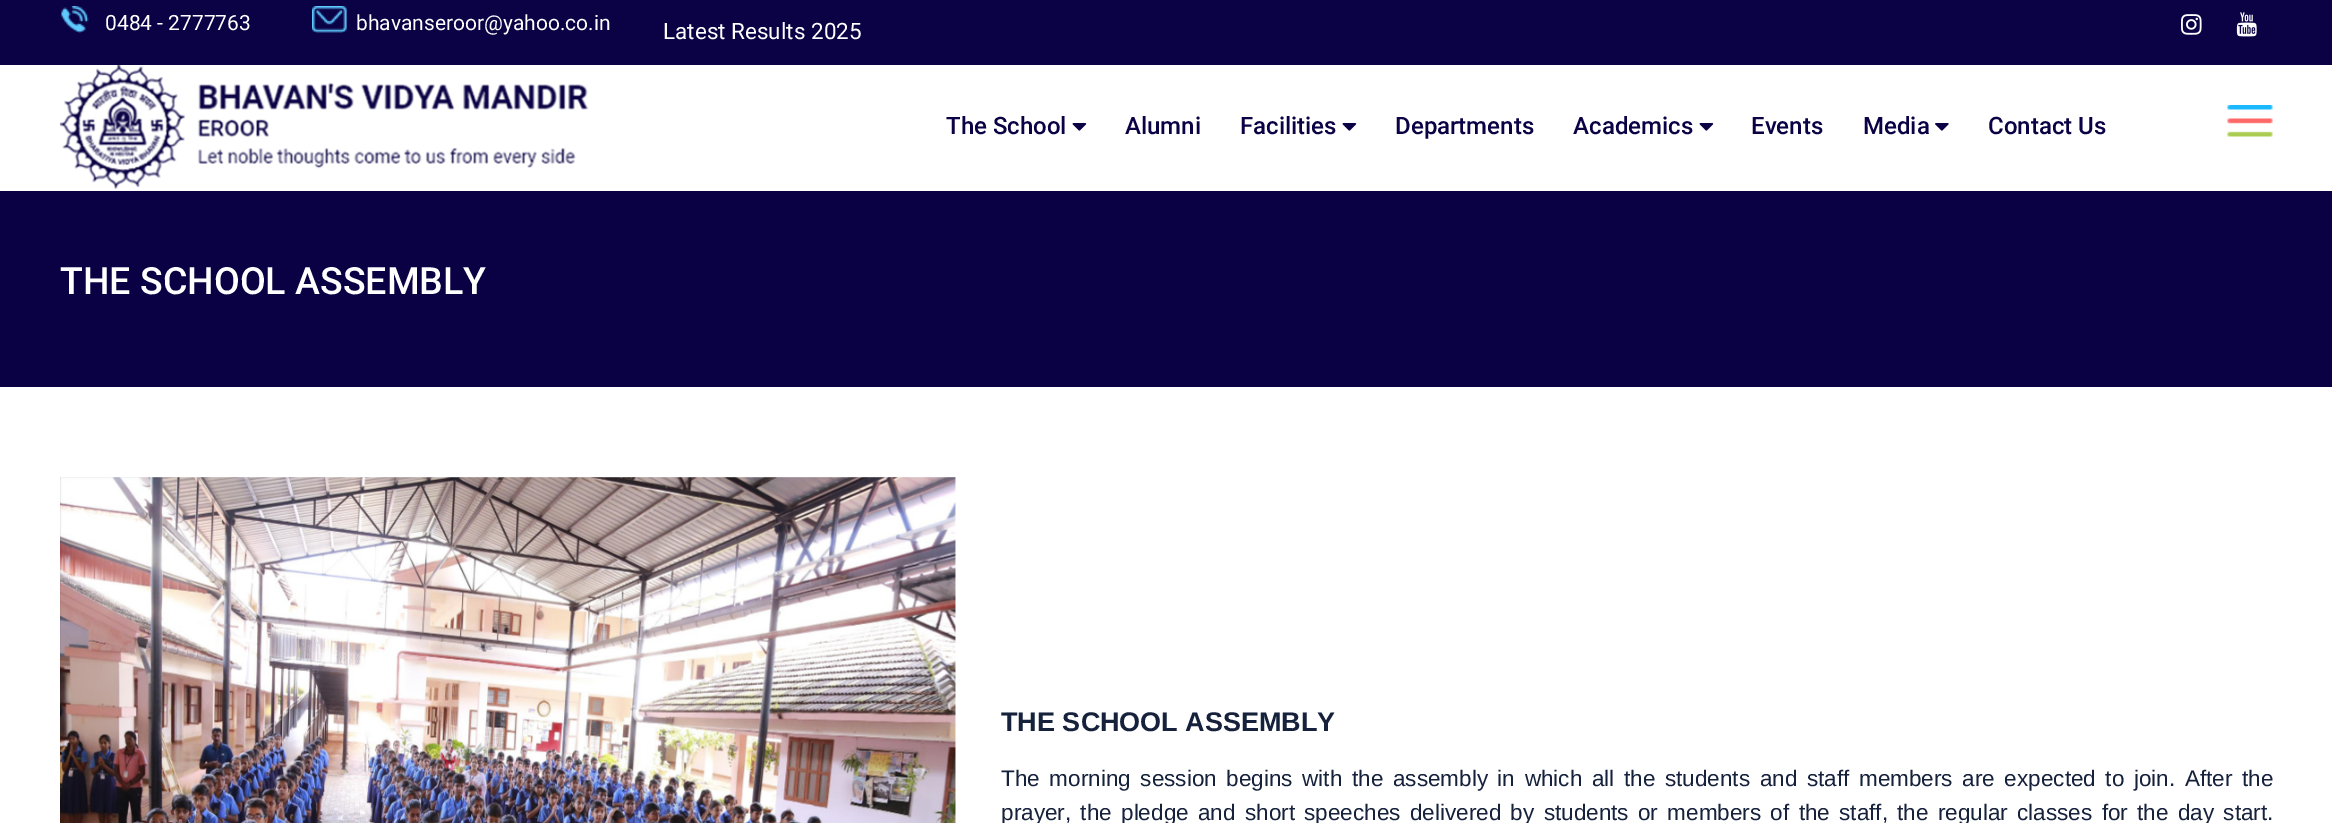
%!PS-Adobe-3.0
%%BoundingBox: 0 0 2332 823
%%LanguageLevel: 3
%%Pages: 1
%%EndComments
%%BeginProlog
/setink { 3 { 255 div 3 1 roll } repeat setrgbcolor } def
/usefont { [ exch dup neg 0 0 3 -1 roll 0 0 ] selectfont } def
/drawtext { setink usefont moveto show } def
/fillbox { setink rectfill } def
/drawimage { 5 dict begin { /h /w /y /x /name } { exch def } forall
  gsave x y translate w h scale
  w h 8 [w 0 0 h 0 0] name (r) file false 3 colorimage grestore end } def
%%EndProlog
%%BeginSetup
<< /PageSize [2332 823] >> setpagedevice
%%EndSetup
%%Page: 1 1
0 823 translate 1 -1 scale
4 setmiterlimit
0 0 2332 823 255 255 255 fillbox
0 0 2332 65 10 2 68 fillbox
(assets/img1.rgb) 61 6 28 27 drawimage
(0484 - 2777763) 105 30 /Roboto-Regular 21 255 255 255 drawtext
(assets/img2.rgb) 312 6 35 27 drawimage
(bhavanseroor@yahoo.co.in) 356 30 /Roboto-Regular 21 255 255 255 drawtext
(Latest Results 2025) 663 39 /Roboto-Regular 22.5 255 255 255 drawtext
(assets/img3.rgb) 2181 14 21 21 drawimage
(assets/img4.rgb) 2236 12 21 25 drawimage
(assets/img5.rgb) 60 65 529 124 drawimage
(The School) 946 134 /Roboto-Medium 24 10 2 68 drawtext
(assets/img6.rgb) 1072 123 15 8 drawimage
(Alumni) 1125 134 /Roboto-Medium 24 10 2 68 drawtext
(Facilities) 1240 134 /Roboto-Medium 24 10 2 68 drawtext
(assets/img6.rgb) 1342 123 15 8 drawimage
(Departments) 1395 134 /Roboto-Medium 24 10 2 68 drawtext
(Academics) 1573 134 /Roboto-Medium 24 10 2 68 drawtext
(assets/img6.rgb) 1699 123 15 8 drawimage
(Events) 1751 134 /Roboto-Medium 24 10 2 68 drawtext
(Media) 1863 134 /Roboto-Medium 24 10 2 68 drawtext
(assets/img7.rgb) 1935 123 14 8 drawimage
(Contact Us) 1988 134 /Roboto-Medium 24 10 2 68 drawtext
(assets/img8.rgb) 2227 105 46 32 drawimage
0 191 2332 196 10 1 68 fillbox
(THE SCHOOL ASSEMBLY) 60 294 /Roboto-Medium 37.5 255 255 255 drawtext
(assets/img9.rgb) 60 477 1 1 drawimage
(assets/img10.rgb) 60 477 896 346 drawimage
(THE SCHOOL ASSEMBLY) 1001 731 /LiberationSans-Bold 27 22 33 60 drawtext
/LiberationSans-Regular 22.5 usefont
1001 786 moveto 3.4 0 32 (The morning session begins with the assembly in which all the students and staff members are expected to join. After the) widthshow
1001 820 moveto 3.1 0 32 (prayer, the pledge and short speeches delivered by students or members of the staff, the regular classes for the day start.) widthshow
showpage
%%EOF
